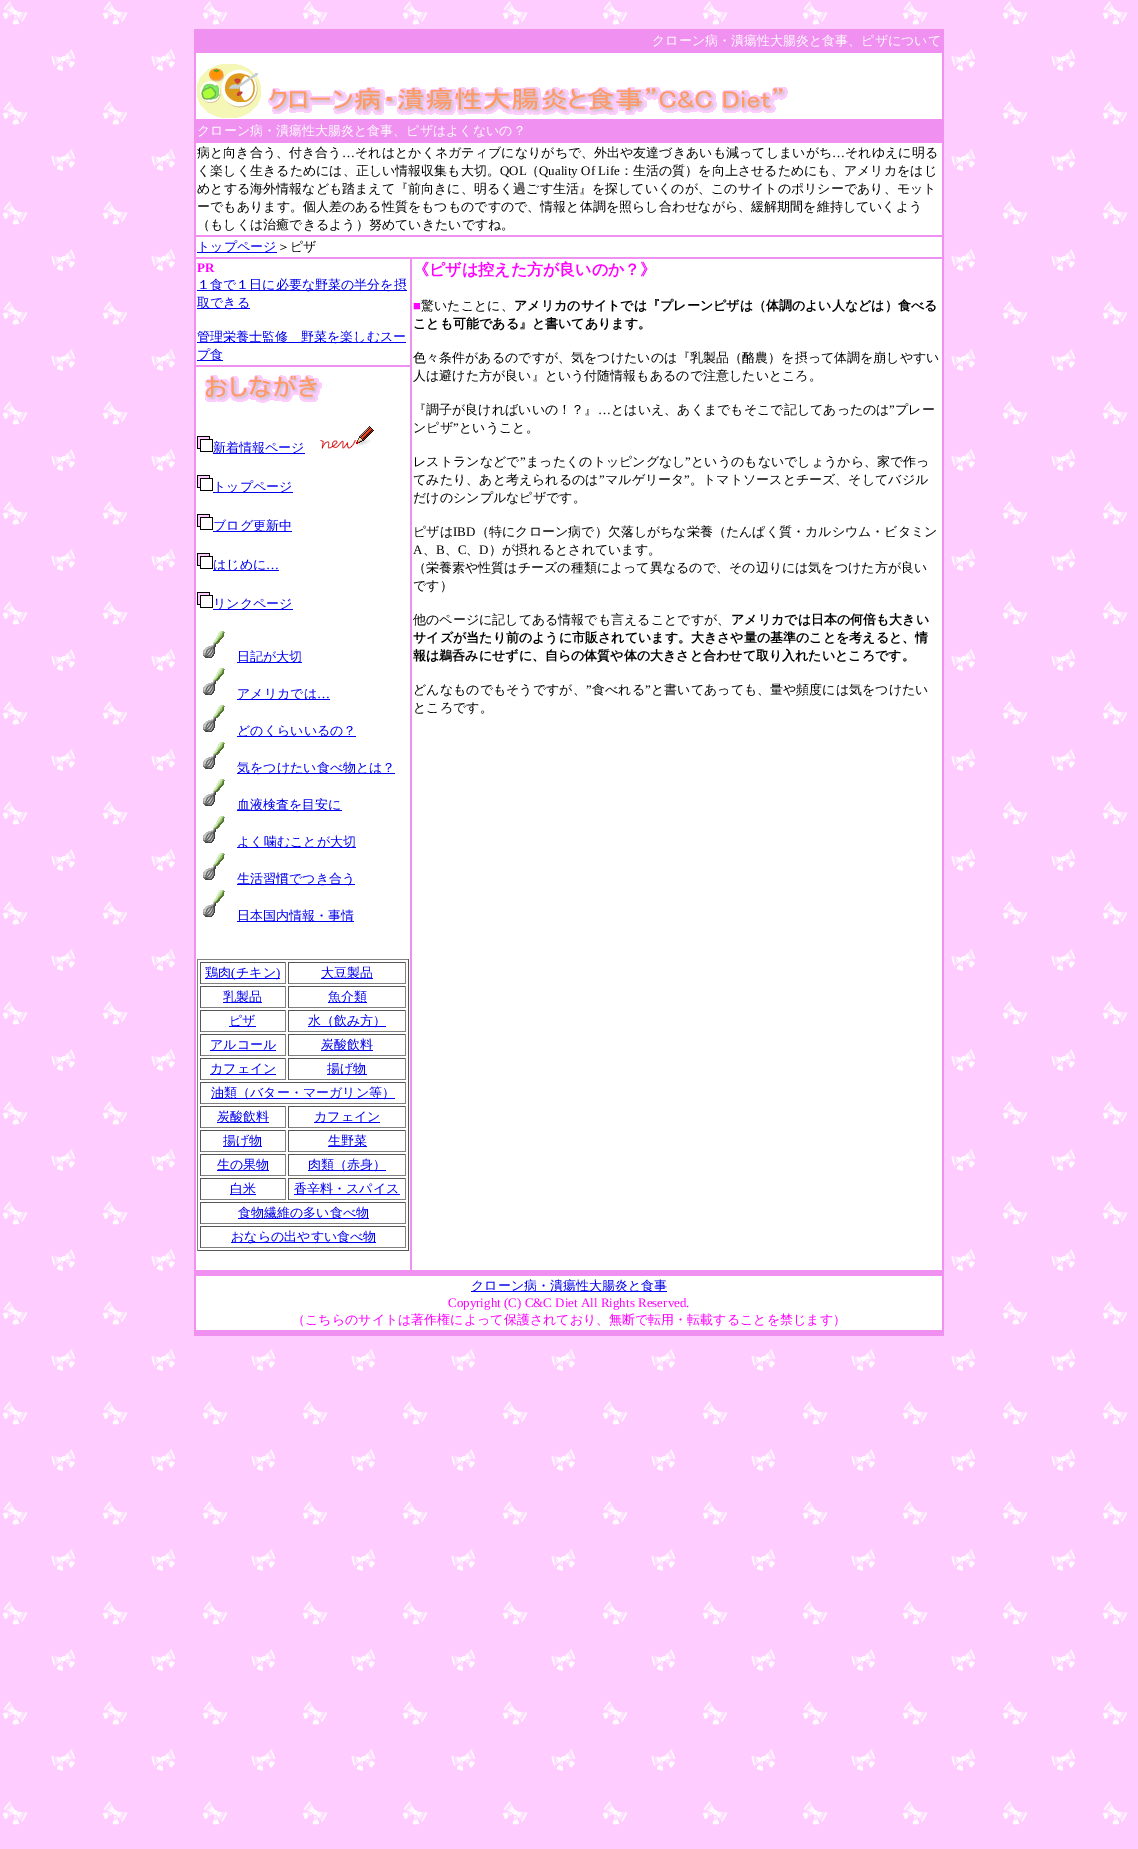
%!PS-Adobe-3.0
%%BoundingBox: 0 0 1138 1849
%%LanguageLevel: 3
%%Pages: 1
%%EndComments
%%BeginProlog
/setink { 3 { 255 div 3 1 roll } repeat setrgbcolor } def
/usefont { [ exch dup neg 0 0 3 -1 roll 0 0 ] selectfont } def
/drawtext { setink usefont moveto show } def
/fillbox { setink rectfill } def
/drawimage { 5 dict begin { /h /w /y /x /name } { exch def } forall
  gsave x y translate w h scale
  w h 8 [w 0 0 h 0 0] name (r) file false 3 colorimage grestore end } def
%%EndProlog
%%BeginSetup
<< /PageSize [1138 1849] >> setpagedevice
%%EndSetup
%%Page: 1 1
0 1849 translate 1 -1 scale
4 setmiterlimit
0 0 1138 1849 255 255 255 fillbox
(assets/img1.rgb) 0 0 1138 1849 drawimage
194 29 750 1307 240 145 242 fillbox
(クローン病・潰瘍性大腸炎と食事、ピザについて) 652 45 /WenQuanYiZenHei-Medium 13 255 255 255 drawtext
196 53 746 66 255 255 255 fillbox
(assets/img2.rgb) 197 64 64 54 drawimage
(assets/img3.rgb) 268 87 520 28 drawimage
(クローン病・潰瘍性大腸炎と食事、ピザはよくないの？) 197 135 /WenQuanYiZenHei-Medium 13 255 255 255 drawtext
196 143 746 92 255 255 255 fillbox
(病と向き合う、付き合う) 197 157 /WenQuanYiZenHei-Medium 13 0 0 0 drawtext
(…) 342 157 /LiberationSerif-Regular 13 0 0 0 drawtext
(それはとかくネガティブになりがちで、外出や友達づきあいも減ってしまいがち) 355 157 /WenQuanYiZenHei-Medium 13 0 0 0 drawtext
(…) 832 157 /LiberationSerif-Regular 13 0 0 0 drawtext
(それゆえに明る) 845 157 /WenQuanYiZenHei-Medium 13 0 0 0 drawtext
(く楽しく生きるためには、正しい情報収集も大切。) 197 175 /WenQuanYiZenHei-Medium 13 0 0 0 drawtext
(QOL) 500 175 /LiberationSerif-Regular 13 0 0 0 drawtext
(（) 526 175 /WenQuanYiZenHei-Medium 13 0 0 0 drawtext
(Quality Of Life) 539 175 /LiberationSerif-Regular 13 0 0 0 drawtext
(：生活の質）を向上させるためにも、アメリカをはじ) 620 175 /WenQuanYiZenHei-Medium 13 0 0 0 drawtext
(めとする海外情報なども踏まえて『前向きに、明るく過ごす生活』を探していくのが、このサイトのポリシーであり、モット) 197 193 /WenQuanYiZenHei-Medium 13 0 0 0 drawtext
(ーでもあります。個人差のある性質をもつものですので、情報と体調を照らし合わせながら、緩解期間を維持していくよう) 197 211 /WenQuanYiZenHei-Medium 13 0 0 0 drawtext
(（もしくは治癒できるよう）努めていきたいですね。) 197 229 /WenQuanYiZenHei-Medium 13 0 0 0 drawtext
196 237 746 20 255 255 255 fillbox
197 252 80 1 0 0 238 fillbox
(トップページ) 197 251 /WenQuanYiZenHei-Medium 13 0 0 238 drawtext
(＞ピザ) 277 251 /WenQuanYiZenHei-Medium 13 0 0 0 drawtext
196 259 214 106 255 255 255 fillbox
(PR) 197 272 /LiberationSerif-Bold 13 255 0 255 drawtext
197 290 210 1 0 0 238 fillbox
(１食で１日に必要な野菜の半分を摂) 197 289 /WenQuanYiZenHei-Medium 13 0 0 238 drawtext
197 308 53 1 0 0 238 fillbox
(取できる) 197 307 /WenQuanYiZenHei-Medium 13 0 0 238 drawtext
197 342 209 1 0 0 238 fillbox
(管理栄養士監修　野菜を楽しむスー) 197 341 /WenQuanYiZenHei-Medium 13 0 0 238 drawtext
197 360 26 1 0 0 238 fillbox
(プ食) 197 359 /WenQuanYiZenHei-Medium 13 0 0 238 drawtext
412 259 530 1011 255 255 255 fillbox
(《ピザは控えた方が良いのか？》) 413 275 /WenQuanYiZenHei-Bold 16 255 0 255 drawtext
(■) 413 310 /LiberationSerif-Regular 13 255 0 255 drawtext
(驚いたことに、) 421 310 /WenQuanYiZenHei-Medium 13 0 0 0 drawtext
(アメリカのサイトでは『プレーンピザは（体調のよい人などは）食べる) 514 310 /WenQuanYiZenHei-Bold 13 0 0 0 drawtext
(ことも可能である』と書いてあります。) 413 328 /WenQuanYiZenHei-Bold 13 0 0 0 drawtext
(色々条件があるのですが、気をつけたいのは『乳製品（酪農）を摂って体調を崩しやすい) 413 362 /WenQuanYiZenHei-Medium 13 0 0 0 drawtext
(人は避けた方が良い』という付随情報もあるので注意したいところ。) 413 380 /WenQuanYiZenHei-Medium 13 0 0 0 drawtext
(『調子が良ければいいの！？』) 413 414 /WenQuanYiZenHei-Medium 13 0 0 0 drawtext
(とはいえ、あくまでもそこで記してあったのは) 611 414 /WenQuanYiZenHei-Medium 13 0 0 0 drawtext
(”) 889 414 /LiberationSerif-Regular 13 0 0 0 drawtext
(プレー) 895 414 /WenQuanYiZenHei-Medium 13 0 0 0 drawtext
(…) 598 414 /LiberationSerif-Regular 13 0 0 0 drawtext
(ンピザ) 413 432 /WenQuanYiZenHei-Medium 13 0 0 0 drawtext
(”) 453 432 /LiberationSerif-Regular 13 0 0 0 drawtext
(ということ。) 459 432 /WenQuanYiZenHei-Medium 13 0 0 0 drawtext
(レストランなどで) 413 466 /WenQuanYiZenHei-Medium 13 0 0 0 drawtext
(”) 520 466 /LiberationSerif-Regular 13 0 0 0 drawtext
(まったくのトッピングなし) 526 466 /WenQuanYiZenHei-Medium 13 0 0 0 drawtext
(”) 685 466 /LiberationSerif-Regular 13 0 0 0 drawtext
(というのもないでしょうから、家で作っ) 691 466 /WenQuanYiZenHei-Medium 13 0 0 0 drawtext
(てみたり、あと考えられるのは) 413 484 /WenQuanYiZenHei-Medium 13 0 0 0 drawtext
(”) 599 484 /LiberationSerif-Regular 13 0 0 0 drawtext
(マルゲリータ) 605 484 /WenQuanYiZenHei-Medium 13 0 0 0 drawtext
(”) 684 484 /LiberationSerif-Regular 13 0 0 0 drawtext
(。トマトソースとチーズ、そしてバジル) 690 484 /WenQuanYiZenHei-Medium 13 0 0 0 drawtext
(だけのシンプルなピザです。) 413 502 /WenQuanYiZenHei-Medium 13 0 0 0 drawtext
(ピザは) 413 536 /WenQuanYiZenHei-Medium 13 0 0 0 drawtext
(IBD) 453 536 /LiberationSerif-Regular 13 0 0 0 drawtext
(（特にクローン病で）欠落しがちな栄養（たんぱく質・カルシウム・ビタミン) 476 536 /WenQuanYiZenHei-Medium 13 0 0 0 drawtext
(A) 413 554 /LiberationSerif-Regular 13 0 0 0 drawtext
(B) 436 554 /LiberationSerif-Regular 13 0 0 0 drawtext
(C) 458 554 /LiberationSerif-Regular 13 0 0 0 drawtext
(D) 479 554 /LiberationSerif-Regular 13 0 0 0 drawtext
(）が摂れるとされています。) 489 554 /WenQuanYiZenHei-Medium 13 0 0 0 drawtext
(、) 423 554 /WenQuanYiZenHei-Medium 13 0 0 0 drawtext
(、) 445 554 /WenQuanYiZenHei-Medium 13 0 0 0 drawtext
(、) 466 554 /WenQuanYiZenHei-Medium 13 0 0 0 drawtext
(（栄養素や性質はチーズの種類によって異なるので、その辺りには気をつけた方が良い) 413 572 /WenQuanYiZenHei-Medium 13 0 0 0 drawtext
(です）) 413 590 /WenQuanYiZenHei-Medium 13 0 0 0 drawtext
(他のページに記してある情報でも言えることですが、) 413 624 /WenQuanYiZenHei-Medium 13 0 0 0 drawtext
(アメリカでは日本の何倍も大きい) 731 624 /WenQuanYiZenHei-Bold 13 0 0 0 drawtext
(サイズが当たり前のように市販されています。大きさや量の基準のことを考えると、情) 413 642 /WenQuanYiZenHei-Bold 13 0 0 0 drawtext
(報は鵜呑みにせずに、自らの体質や体の大きさと合わせて取り入れたいところです。) 413 660 /WenQuanYiZenHei-Bold 13 0 0 0 drawtext
(どんなものでもそうですが、) 413 694 /WenQuanYiZenHei-Medium 13 0 0 0 drawtext
(”) 586 694 /LiberationSerif-Regular 13 0 0 0 drawtext
(食べれる) 592 694 /WenQuanYiZenHei-Medium 13 0 0 0 drawtext
(”) 645 694 /LiberationSerif-Regular 13 0 0 0 drawtext
(と書いてあっても、量や頻度には気をつけたい) 651 694 /WenQuanYiZenHei-Medium 13 0 0 0 drawtext
(ところです。) 413 712 /WenQuanYiZenHei-Medium 13 0 0 0 drawtext
196 367 214 903 255 255 255 fillbox
(assets/img4.rgb) 205 375 117 28 drawimage
(assets/img5.rgb) 197 436 16 16 drawimage
213 453 92 1 0 0 238 fillbox
(新着情報ページ) 213 452 /WenQuanYiZenHei-Medium 13 0 0 238 drawtext
(assets/img6.rgb) 320 426 54 23 drawimage
(assets/img5.rgb) 197 475 16 16 drawimage
213 492 80 1 0 0 238 fillbox
(トップページ) 213 491 /WenQuanYiZenHei-Medium 13 0 0 238 drawtext
(assets/img5.rgb) 197 514 16 16 drawimage
213 531 79 1 0 0 238 fillbox
(ブログ更新中) 213 530 /WenQuanYiZenHei-Medium 13 0 0 238 drawtext
(assets/img5.rgb) 197 553 16 16 drawimage
213 570 66 1 0 0 238 fillbox
(はじめに) 213 569 /WenQuanYiZenHei-Medium 13 0 0 238 drawtext
(…) 266 569 /LiberationSerif-Regular 13 0 0 238 drawtext
(assets/img5.rgb) 197 592 16 16 drawimage
213 609 80 1 0 0 238 fillbox
(リンクページ) 213 608 /WenQuanYiZenHei-Medium 13 0 0 238 drawtext
(assets/img7.rgb) 203 631 22 27 drawimage
237 662 65 1 0 0 238 fillbox
(日記が大切) 237 661 /WenQuanYiZenHei-Medium 13 0 0 238 drawtext
(assets/img7.rgb) 203 668 22 27 drawimage
237 699 93 1 0 0 238 fillbox
(アメリカでは) 237 698 /WenQuanYiZenHei-Medium 13 0 0 238 drawtext
(…) 317 698 /LiberationSerif-Regular 13 0 0 238 drawtext
(assets/img7.rgb) 203 705 22 27 drawimage
237 736 119 1 0 0 238 fillbox
(どのくらいいるの？) 237 735 /WenQuanYiZenHei-Medium 13 0 0 238 drawtext
(assets/img7.rgb) 203 742 22 27 drawimage
237 773 158 1 0 0 238 fillbox
(気をつけたい食べ物とは？) 237 772 /WenQuanYiZenHei-Medium 13 0 0 238 drawtext
(assets/img7.rgb) 203 779 22 27 drawimage
237 810 105 1 0 0 238 fillbox
(血液検査を目安に) 237 809 /WenQuanYiZenHei-Medium 13 0 0 238 drawtext
(assets/img7.rgb) 203 816 22 27 drawimage
237 847 119 1 0 0 238 fillbox
(よく噛むことが大切) 237 846 /WenQuanYiZenHei-Medium 13 0 0 238 drawtext
(assets/img7.rgb) 203 853 22 27 drawimage
237 884 118 1 0 0 238 fillbox
(生活習慣でつき合う) 237 883 /WenQuanYiZenHei-Medium 13 0 0 238 drawtext
(assets/img7.rgb) 203 890 22 27 drawimage
237 921 117 1 0 0 238 fillbox
(日本国内情報・事情) 237 920 /WenQuanYiZenHei-Medium 13 0 0 238 drawtext
197 959 212 1 128 128 128 fillbox
408 959 1 292 85 85 85 fillbox
197 1250 212 1 85 85 85 fillbox
197 959 1 292 128 128 128 fillbox
200 962 86 1 85 85 85 fillbox
285 962 1 22 128 128 128 fillbox
200 983 86 1 128 128 128 fillbox
200 962 1 22 85 85 85 fillbox
205 978 75 1 0 0 238 fillbox
(鶏肉) 205 977 /WenQuanYiZenHei-Medium 13 0 0 238 drawtext
(\() 231 977 /LiberationSerif-Regular 13 0 0 238 drawtext
(チキン) 236 977 /WenQuanYiZenHei-Medium 13 0 0 238 drawtext
(\)) 276 977 /LiberationSerif-Regular 13 0 0 238 drawtext
288 962 118 1 85 85 85 fillbox
405 962 1 22 128 128 128 fillbox
288 983 118 1 128 128 128 fillbox
288 962 1 22 85 85 85 fillbox
321 978 52 1 0 0 238 fillbox
(大豆製品) 321 977 /WenQuanYiZenHei-Medium 13 0 0 238 drawtext
200 986 86 1 85 85 85 fillbox
285 986 1 22 128 128 128 fillbox
200 1007 86 1 128 128 128 fillbox
200 986 1 22 85 85 85 fillbox
223 1002 39 1 0 0 238 fillbox
(乳製品) 223 1001 /WenQuanYiZenHei-Medium 13 0 0 238 drawtext
288 986 118 1 85 85 85 fillbox
405 986 1 22 128 128 128 fillbox
288 1007 118 1 128 128 128 fillbox
288 986 1 22 85 85 85 fillbox
328 1002 39 1 0 0 238 fillbox
(魚介類) 328 1001 /WenQuanYiZenHei-Medium 13 0 0 238 drawtext
200 1010 86 1 85 85 85 fillbox
285 1010 1 22 128 128 128 fillbox
200 1031 86 1 128 128 128 fillbox
200 1010 1 22 85 85 85 fillbox
229 1026 27 1 0 0 238 fillbox
(ピザ) 229 1025 /WenQuanYiZenHei-Medium 13 0 0 238 drawtext
288 1010 118 1 85 85 85 fillbox
405 1010 1 22 128 128 128 fillbox
288 1031 118 1 128 128 128 fillbox
288 1010 1 22 85 85 85 fillbox
308 1026 78 1 0 0 238 fillbox
(水（飲み方）) 308 1025 /WenQuanYiZenHei-Medium 13 0 0 238 drawtext
200 1034 86 1 85 85 85 fillbox
285 1034 1 22 128 128 128 fillbox
200 1055 86 1 128 128 128 fillbox
200 1034 1 22 85 85 85 fillbox
210 1050 66 1 0 0 238 fillbox
(アルコール) 210 1049 /WenQuanYiZenHei-Medium 13 0 0 238 drawtext
288 1034 118 1 85 85 85 fillbox
405 1034 1 22 128 128 128 fillbox
288 1055 118 1 128 128 128 fillbox
288 1034 1 22 85 85 85 fillbox
321 1050 52 1 0 0 238 fillbox
(炭酸飲料) 321 1049 /WenQuanYiZenHei-Medium 13 0 0 238 drawtext
200 1058 86 1 85 85 85 fillbox
285 1058 1 22 128 128 128 fillbox
200 1079 86 1 128 128 128 fillbox
200 1058 1 22 85 85 85 fillbox
210 1074 66 1 0 0 238 fillbox
(カフェイン) 210 1073 /WenQuanYiZenHei-Medium 13 0 0 238 drawtext
288 1058 118 1 85 85 85 fillbox
405 1058 1 22 128 128 128 fillbox
288 1079 118 1 128 128 128 fillbox
288 1058 1 22 85 85 85 fillbox
327 1074 40 1 0 0 238 fillbox
(揚げ物) 327 1073 /WenQuanYiZenHei-Medium 13 0 0 238 drawtext
200 1082 206 1 85 85 85 fillbox
405 1082 1 22 128 128 128 fillbox
200 1103 206 1 128 128 128 fillbox
200 1082 1 22 85 85 85 fillbox
211 1098 184 1 0 0 238 fillbox
(油類（バター・マーガリン等）) 211 1097 /WenQuanYiZenHei-Medium 13 0 0 238 drawtext
200 1106 86 1 85 85 85 fillbox
285 1106 1 22 128 128 128 fillbox
200 1127 86 1 128 128 128 fillbox
200 1106 1 22 85 85 85 fillbox
217 1122 52 1 0 0 238 fillbox
(炭酸飲料) 217 1121 /WenQuanYiZenHei-Medium 13 0 0 238 drawtext
288 1106 118 1 85 85 85 fillbox
405 1106 1 22 128 128 128 fillbox
288 1127 118 1 128 128 128 fillbox
288 1106 1 22 85 85 85 fillbox
314 1122 66 1 0 0 238 fillbox
(カフェイン) 314 1121 /WenQuanYiZenHei-Medium 13 0 0 238 drawtext
200 1130 86 1 85 85 85 fillbox
285 1130 1 22 128 128 128 fillbox
200 1151 86 1 128 128 128 fillbox
200 1130 1 22 85 85 85 fillbox
223 1146 39 1 0 0 238 fillbox
(揚げ物) 223 1145 /WenQuanYiZenHei-Medium 13 0 0 238 drawtext
288 1130 118 1 85 85 85 fillbox
405 1130 1 22 128 128 128 fillbox
288 1151 118 1 128 128 128 fillbox
288 1130 1 22 85 85 85 fillbox
328 1146 39 1 0 0 238 fillbox
(生野菜) 328 1145 /WenQuanYiZenHei-Medium 13 0 0 238 drawtext
200 1154 86 1 85 85 85 fillbox
285 1154 1 22 128 128 128 fillbox
200 1175 86 1 128 128 128 fillbox
200 1154 1 22 85 85 85 fillbox
217 1170 52 1 0 0 238 fillbox
(生の果物) 217 1169 /WenQuanYiZenHei-Medium 13 0 0 238 drawtext
288 1154 118 1 85 85 85 fillbox
405 1154 1 22 128 128 128 fillbox
288 1175 118 1 128 128 128 fillbox
288 1154 1 22 85 85 85 fillbox
308 1170 78 1 0 0 238 fillbox
(肉類（赤身）) 308 1169 /WenQuanYiZenHei-Medium 13 0 0 238 drawtext
200 1178 86 1 85 85 85 fillbox
285 1178 1 22 128 128 128 fillbox
200 1199 86 1 128 128 128 fillbox
200 1178 1 22 85 85 85 fillbox
230 1194 26 1 0 0 238 fillbox
(白米) 230 1193 /WenQuanYiZenHei-Medium 13 0 0 238 drawtext
288 1178 118 1 85 85 85 fillbox
405 1178 1 22 128 128 128 fillbox
288 1199 118 1 128 128 128 fillbox
288 1178 1 22 85 85 85 fillbox
294 1194 106 1 0 0 238 fillbox
(香辛料・スパイス) 294 1193 /WenQuanYiZenHei-Medium 13 0 0 238 drawtext
200 1202 206 1 85 85 85 fillbox
405 1202 1 22 128 128 128 fillbox
200 1223 206 1 128 128 128 fillbox
200 1202 1 22 85 85 85 fillbox
238 1218 131 1 0 0 238 fillbox
(食物繊維の多い食べ物) 238 1217 /WenQuanYiZenHei-Medium 13 0 0 238 drawtext
200 1226 206 1 85 85 85 fillbox
405 1226 1 22 128 128 128 fillbox
200 1247 206 1 128 128 128 fillbox
200 1226 1 22 85 85 85 fillbox
231 1242 145 1 0 0 238 fillbox
(おならの出やすい食べ物) 231 1241 /WenQuanYiZenHei-Medium 13 0 0 238 drawtext
196 1276 746 54 255 255 255 fillbox
471 1291 196 1 0 0 238 fillbox
(クローン病・潰瘍性大腸炎と食事) 471 1290 /WenQuanYiZenHei-Medium 13 0 0 238 drawtext
(Copyright \(C\) C&C Diet All Rights Reserved.) 448 1307 /LiberationSerif-Regular 13 255 0 255 drawtext
(（こちらのサイトは著作権によって保護されており、無断で転用・転載することを禁じます）) 292 1324 /WenQuanYiZenHei-Medium 13 255 0 255 drawtext
showpage
%%EOF
